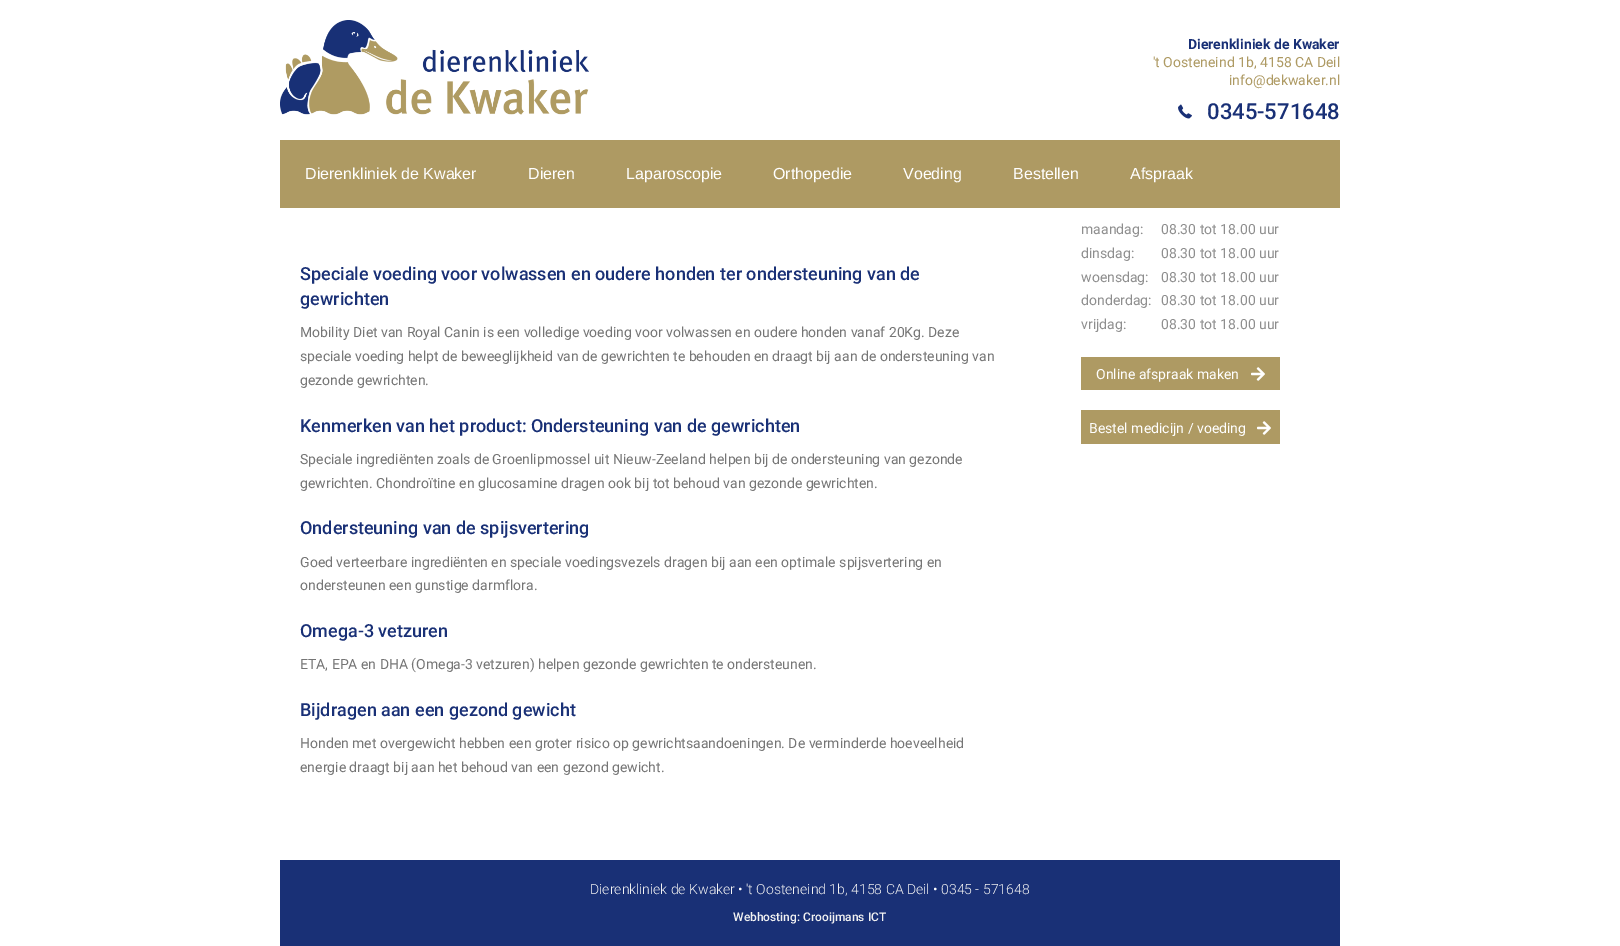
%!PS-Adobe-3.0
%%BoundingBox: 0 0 1620 946
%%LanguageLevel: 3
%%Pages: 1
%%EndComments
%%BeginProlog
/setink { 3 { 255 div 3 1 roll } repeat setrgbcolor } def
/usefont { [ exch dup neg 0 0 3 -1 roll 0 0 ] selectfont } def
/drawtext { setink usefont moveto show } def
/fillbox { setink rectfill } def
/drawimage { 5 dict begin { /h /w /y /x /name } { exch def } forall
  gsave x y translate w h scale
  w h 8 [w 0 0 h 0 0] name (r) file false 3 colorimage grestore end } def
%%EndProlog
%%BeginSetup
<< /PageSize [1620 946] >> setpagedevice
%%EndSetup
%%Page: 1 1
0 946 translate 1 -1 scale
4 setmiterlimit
0 0 1620 946 255 255 255 fillbox
(assets/img1.rgb) 280 20 309 95 drawimage
(Dierenkliniek de Kwaker) 1188 49 /Roboto-Bold 14 25 48 118 drawtext
('t Oosteneind 1b, 4158 CA Deil) 1153 67 /Roboto-Regular 14 174 154 99 drawtext
(info@dekwaker.nl) 1229 85 /Roboto-Regular 14 174 154 99 drawtext
(assets/img2.rgb) 1178 104 14 15 drawimage
(0345-571648) 1207 119 /Roboto-Medium 22 25 48 118 drawtext
280 140 1060 68 174 154 99 fillbox
(Dierenkliniek de Kwaker) 305 179 /LiberationSans-Regular 16 255 255 255 drawtext
(Dieren) 528 179 /LiberationSans-Regular 16 255 255 255 drawtext
(Laparoscopie) 626 179 /LiberationSans-Regular 16 255 255 255 drawtext
(Orthopedie) 773 179 /LiberationSans-Regular 16 255 255 255 drawtext
(Voeding) 903 179 /LiberationSans-Regular 16 255 255 255 drawtext
(Bestellen) 1013 179 /LiberationSans-Regular 16 255 255 255 drawtext
(Afspraak) 1130 179 /LiberationSans-Regular 16 255 255 255 drawtext
(Speciale voeding voor volwassen en oudere honden ter ondersteuning van de) 300 280 /Roboto-Medium 18 25 48 118 drawtext
(gewrichten) 300 305 /Roboto-Medium 18 25 48 118 drawtext
(Mobility Diet van Royal Canin is een volledige voeding voor volwassen en oudere honden vanaf 20Kg. Deze) 300 337 /Roboto-Regular 14 117 117 117 drawtext
(speciale voeding helpt de beweeglijkheid van de gewrichten te behouden en draagt bij aan de ondersteuning van) 300 361 /Roboto-Regular 14 117 117 117 drawtext
(gezonde gewrichten.) 300 385 /Roboto-Regular 14 117 117 117 drawtext
(Kenmerken van het product: Ondersteuning van de gewrichten) 300 432 /Roboto-Medium 18 25 48 118 drawtext
(Speciale ingrediënten zoals de Groenlipmossel uit Nieuw-Zeeland helpen bij de ondersteuning van gezonde) 300 464 /Roboto-Regular 14 117 117 117 drawtext
(gewrichten. Chondroïtine en glucosamine dragen ook bij tot behoud van gezonde gewrichten.) 300 488 /Roboto-Regular 14 117 117 117 drawtext
(Ondersteuning van de spijsvertering) 300 534 /Roboto-Medium 18 25 48 118 drawtext
(Goed verteerbare ingrediënten en speciale voedingsvezels dragen bij aan een optimale spijsvertering en) 300 567 /Roboto-Regular 14 117 117 117 drawtext
(ondersteunen een gunstige darmflora.) 300 590 /Roboto-Regular 14 117 117 117 drawtext
(Omega-3 vetzuren) 300 637 /Roboto-Medium 18 25 48 118 drawtext
(ETA, EPA en DHA \(Omega-3 vetzuren\) helpen gezonde gewrichten te ondersteunen.) 300 669 /Roboto-Regular 14 117 117 117 drawtext
(Bijdragen aan een gezond gewicht) 300 716 /Roboto-Medium 18 25 48 118 drawtext
(Honden met overgewicht hebben een groter risico op gewrichtsaandoeningen. De verminderde hoeveelheid) 300 748 /Roboto-Regular 14 117 117 117 drawtext
(energie draagt bij aan het behoud van een gezond gewicht.) 300 772 /Roboto-Regular 14 117 117 117 drawtext
(maandag:) 1081 234 /Roboto-Regular 14 142 142 142 drawtext
(08.30 tot 18.00 uur) 1161 234 /Roboto-Regular 14 142 142 142 drawtext
(dinsdag:) 1081 258 /Roboto-Regular 14 142 142 142 drawtext
(08.30 tot 18.00 uur) 1161 258 /Roboto-Regular 14 142 142 142 drawtext
(woensdag:) 1081 282 /Roboto-Regular 14 142 142 142 drawtext
(08.30 tot 18.00 uur) 1161 282 /Roboto-Regular 14 142 142 142 drawtext
(donderdag:) 1081 305 /Roboto-Regular 14 142 142 142 drawtext
(08.30 tot 18.00 uur) 1161 305 /Roboto-Regular 14 142 142 142 drawtext
(vrijdag:) 1081 329 /Roboto-Regular 14 142 142 142 drawtext
(08.30 tot 18.00 uur) 1161 329 /Roboto-Regular 14 142 142 142 drawtext
1081 357 199 33 174 154 99 fillbox
(Online afspraak maken) 1096 379 /Roboto-Regular 14 255 255 255 drawtext
(assets/img3.rgb) 1251 367 14 14 drawimage
1081 410 199 34 174 154 99 fillbox
(Bestel medicijn / voeding) 1089 433 /Roboto-Regular 14 255 255 255 drawtext
(assets/img3.rgb) 1257 421 14 14 drawimage
280 860 1060 86 25 48 118 fillbox
(Dierenkliniek de Kwaker) 590 894 /Roboto-Light 14 242 242 242 drawtext
(•) 738 894 /Roboto-Light 14 255 255 255 drawtext
('t Oosteneind 1b, 4158 CA Deil) 746 894 /Roboto-Light 14 242 242 242 drawtext
(•) 933 894 /Roboto-Light 14 255 255 255 drawtext
(0345 - 571648) 941 894 /Roboto-Light 14 242 242 242 drawtext
(Webhosting: Crooijmans ICT) 733 921 /Roboto-Medium 12 242 242 242 drawtext
showpage
%%EOF
